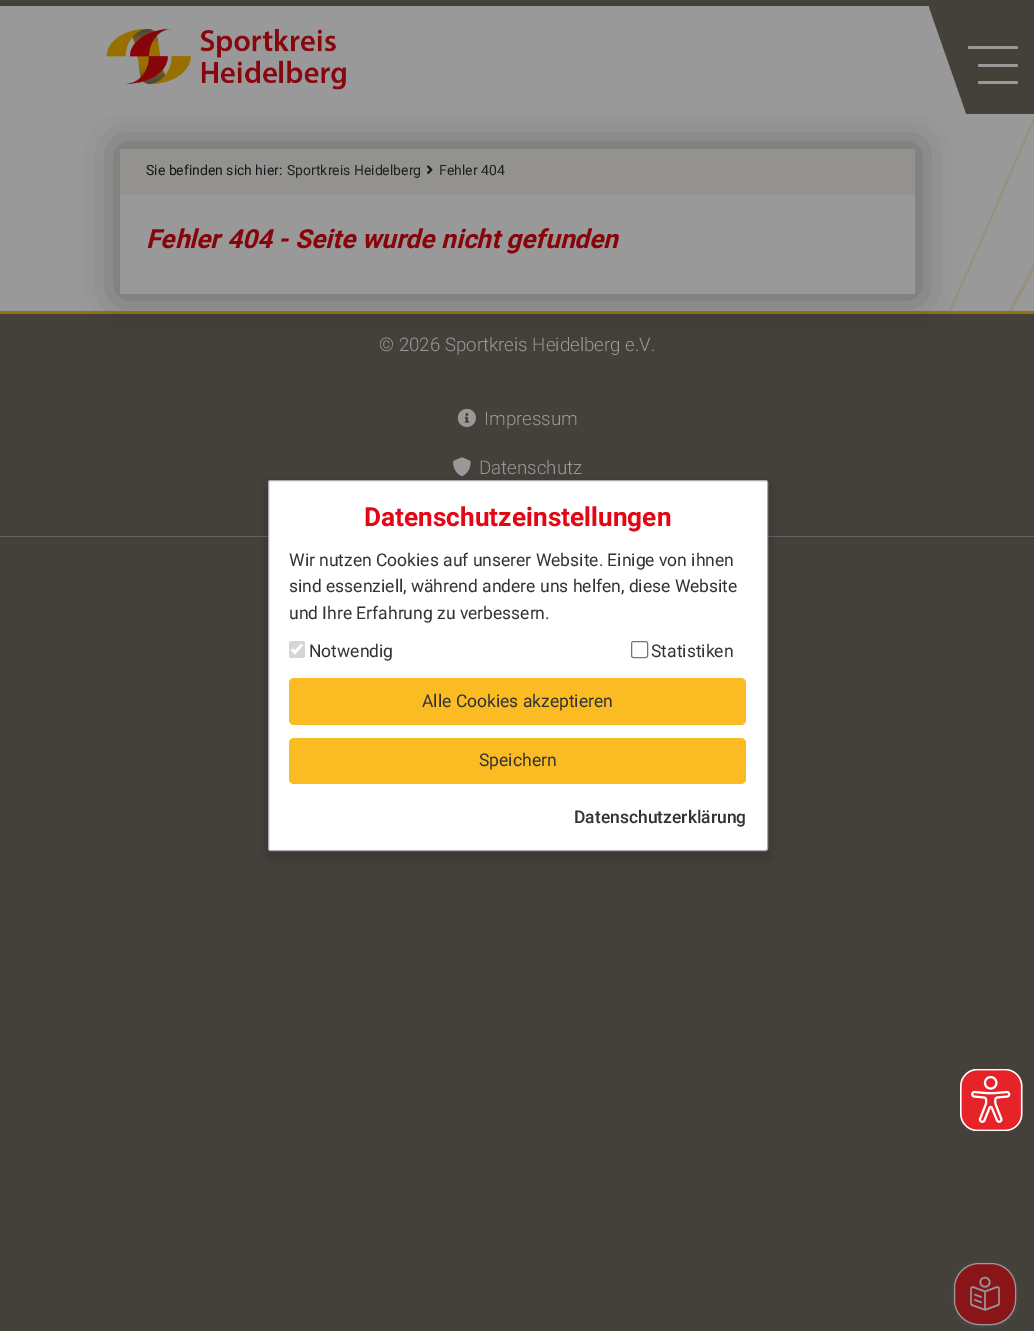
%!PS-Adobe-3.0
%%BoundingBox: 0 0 1034 1331
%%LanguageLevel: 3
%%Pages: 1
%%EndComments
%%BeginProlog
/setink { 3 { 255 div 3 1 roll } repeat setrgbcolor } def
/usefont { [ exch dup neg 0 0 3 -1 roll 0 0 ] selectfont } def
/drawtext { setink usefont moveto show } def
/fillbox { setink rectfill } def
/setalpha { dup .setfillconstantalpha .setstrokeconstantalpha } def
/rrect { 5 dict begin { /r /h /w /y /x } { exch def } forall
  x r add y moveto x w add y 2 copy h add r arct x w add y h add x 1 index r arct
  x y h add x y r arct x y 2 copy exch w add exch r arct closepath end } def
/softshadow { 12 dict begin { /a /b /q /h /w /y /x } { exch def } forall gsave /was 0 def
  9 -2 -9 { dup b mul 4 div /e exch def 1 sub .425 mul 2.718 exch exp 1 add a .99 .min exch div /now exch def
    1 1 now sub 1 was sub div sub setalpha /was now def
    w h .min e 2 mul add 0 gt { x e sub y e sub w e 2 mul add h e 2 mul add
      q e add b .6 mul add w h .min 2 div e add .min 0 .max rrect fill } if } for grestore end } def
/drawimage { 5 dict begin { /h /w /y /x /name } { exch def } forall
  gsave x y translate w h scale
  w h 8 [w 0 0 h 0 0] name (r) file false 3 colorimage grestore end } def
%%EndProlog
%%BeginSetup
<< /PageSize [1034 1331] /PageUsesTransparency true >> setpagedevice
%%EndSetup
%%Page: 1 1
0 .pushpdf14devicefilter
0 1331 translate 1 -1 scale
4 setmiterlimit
0 0 1034 1331 68 65 59 fillbox
0 114 1034 197 153 153 153 fillbox
(assets/img2.rgb) 949 116 85 195 drawimage
0 311 1034 3 151 112 20 fillbox
0 0 0 setink
118 146 800 150 0 19 0.3 softshadow
0 6 966 108 153 153 153 fillbox
(assets/img1.rgb) 106 28 241 62 drawimage
68 65 59 setink
929 7 moveto 929 6 lineto 966 6 lineto 966 113 lineto closepath fill
153 153 153 setink
978 64 40 3 1.5 rrect fill
968 46 50 3 1.5 rrect fill
978 81 40 3 1.5 rrect fill
120 149 795 45 148 146 142 fillbox
(Sie befinden sich hier:) 146 175 /Roboto-Regular 14 20 22 25 drawtext
(Sportkreis Heidelberg) 287 175 /Roboto-Regular 14 31 31 31 drawtext
(assets/img3.rgb) 427 165 6 10 drawimage
(Fehler 404) 439 175 /Roboto-Regular 14 31 31 31 drawtext
120 194 795 100 153 153 153 fillbox
(Fehler 404 - Seite wurde nicht gefunden) 146 248 /Roboto-BoldItalic 26.25 136 4 11 drawtext
0 536 1034 1 102 100 97 fillbox
(© 2026 Sportkreis Heidelberg e.V.) 379 351 /Roboto-Light 18.75 153 153 153 drawtext
(assets/img4.rgb) 457 408 19 19 drawimage
(Impressum) 484 425 /Roboto-Light 18.75 153 153 153 drawtext
(assets/img5.rgb) 453 457 18 20 drawimage
(Datenschutz) 479 474 /Roboto-Light 18.75 153 153 153 drawtext
0 0 0 setink
268 485 500 371 2.5 5 0.2 softshadow
255 255 255 setink
268.5 480.5 499 370 2 rrect gsave fill grestore
170 170 170 setink
stroke
(Datenschutzeinstellungen) 364 526 /Roboto-Bold 26.25 227 6 19 drawtext
(Wir nutzen Cookies auf unserer Website. Einige von ihnen) 289 566 /Roboto-Regular 17.5 51 51 51 drawtext
(sind essenziell, während andere uns helfen, diese Website) 289 592 /Roboto-Regular 17.5 51 51 51 drawtext
(und Ihre Erfahrung zu verbessern.) 289 619 /Roboto-Regular 17.5 51 51 51 drawtext
214 214 214 setink
289 641 16 17 2.5 rrect fill
255 255 255 setink
2.6 setlinewidth
292 649.5 moveto 295 652.5 lineto 302 644.5 lineto stroke
(Notwendig) 309 657 /Roboto-Regular 17.5 51 51 51 drawtext
118 118 118 setink
1 setlinewidth
631.5 641.5 16 16 2 rrect stroke
(Statistiken) 651 657 /Roboto-Regular 17.5 51 51 51 drawtext
251 187 34 setink
289 678 457 47 5 rrect fill
(Alle Cookies akzeptieren) 422 707 /Roboto-Regular 17.5 51 51 51 drawtext
251 187 34 setink
289 738 457 46 5 rrect fill
(Speichern) 479 766 /Roboto-Regular 17.5 51 51 51 drawtext
(Datenschutzerklärung) 574 823 /Roboto-Medium 17.5 51 51 51 drawtext
(assets/img6.rgb) 960 1069 63 62 drawimage
79 79 79 setink
954 1264 62 62 25 2 1 softshadow
137 21 25 setink
954.5 1263.5 61 61 24.5 rrect gsave fill grestore
153 153 153 setink
stroke
(assets/img7.rgb) 970 1276 30 35 drawimage
.poppdf14devicefilter showpage
%%EOF
